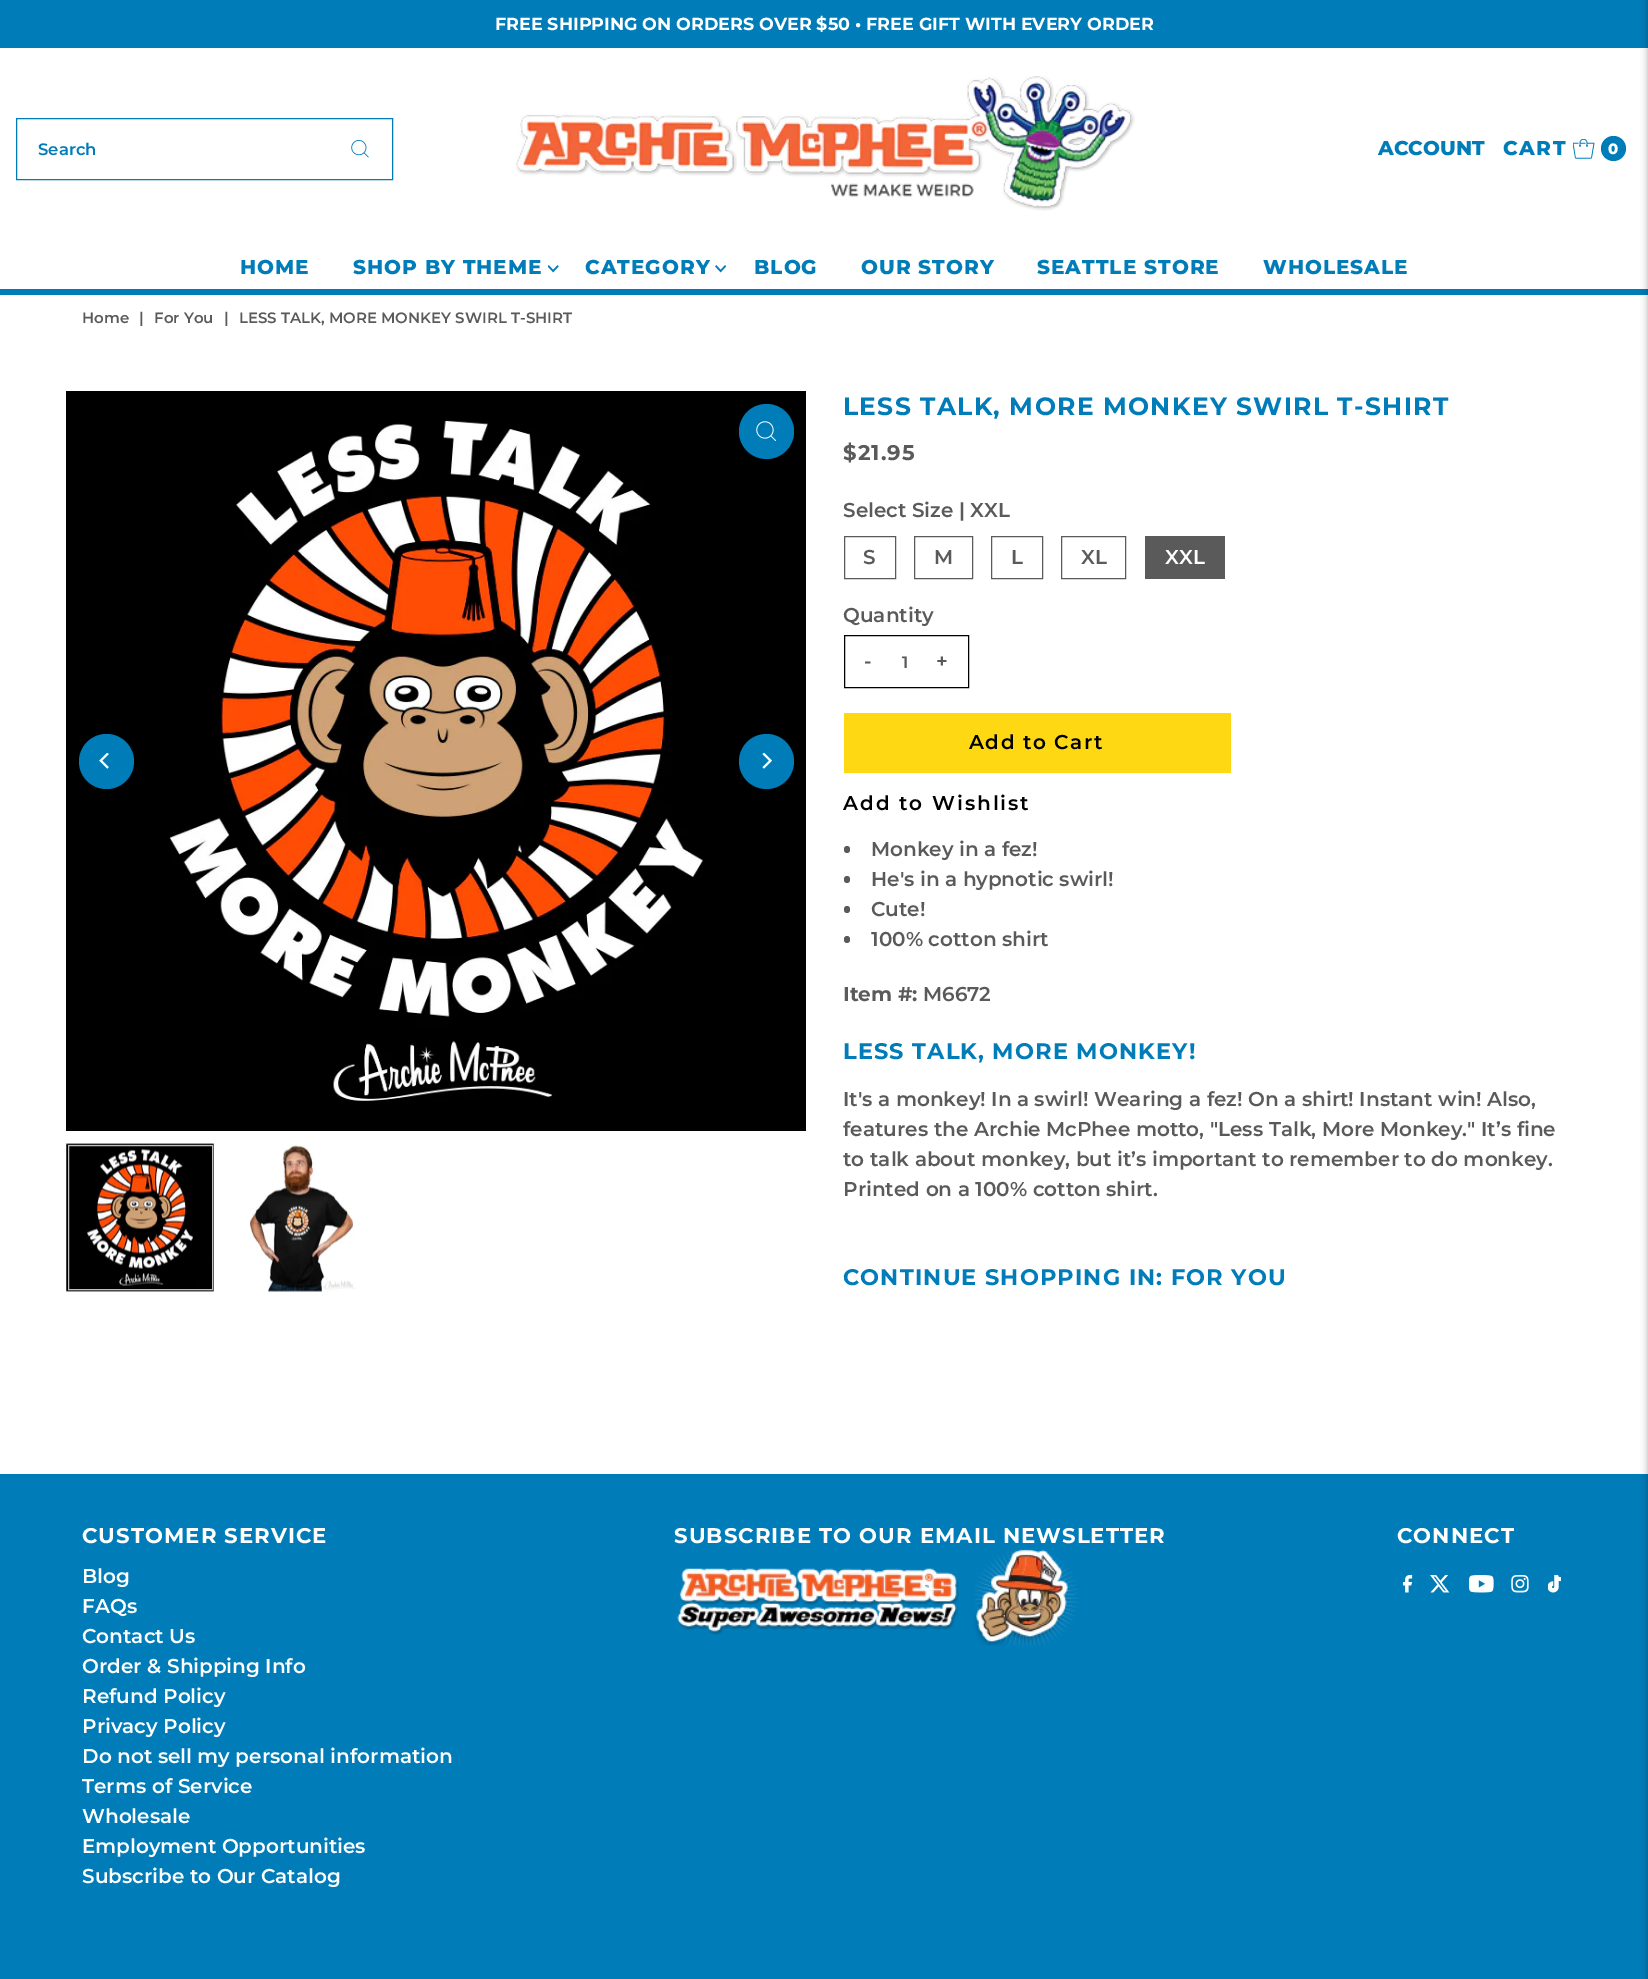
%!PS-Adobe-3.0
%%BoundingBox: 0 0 1648 1979
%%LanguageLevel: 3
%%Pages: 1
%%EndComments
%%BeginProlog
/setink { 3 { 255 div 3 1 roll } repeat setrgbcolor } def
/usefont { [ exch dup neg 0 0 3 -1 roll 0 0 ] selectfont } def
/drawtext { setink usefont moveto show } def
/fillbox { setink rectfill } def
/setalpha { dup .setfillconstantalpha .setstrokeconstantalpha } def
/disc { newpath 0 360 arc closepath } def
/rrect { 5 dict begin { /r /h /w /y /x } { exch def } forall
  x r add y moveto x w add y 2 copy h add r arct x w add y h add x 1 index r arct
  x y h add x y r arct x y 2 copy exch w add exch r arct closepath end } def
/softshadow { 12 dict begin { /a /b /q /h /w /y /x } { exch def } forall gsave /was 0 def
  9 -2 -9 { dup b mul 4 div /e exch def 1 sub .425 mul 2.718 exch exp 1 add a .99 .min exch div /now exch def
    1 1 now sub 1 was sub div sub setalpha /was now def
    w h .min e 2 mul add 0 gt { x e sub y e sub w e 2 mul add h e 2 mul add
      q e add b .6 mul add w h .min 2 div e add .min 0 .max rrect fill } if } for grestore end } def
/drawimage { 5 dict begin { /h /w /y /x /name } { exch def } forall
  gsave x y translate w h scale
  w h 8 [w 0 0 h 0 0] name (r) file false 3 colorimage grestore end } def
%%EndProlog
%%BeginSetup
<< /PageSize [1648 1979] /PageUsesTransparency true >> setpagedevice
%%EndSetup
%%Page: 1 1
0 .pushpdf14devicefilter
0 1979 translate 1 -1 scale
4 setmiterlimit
0 0 1648 1979 255 255 255 fillbox
0 0 1648 48 0 124 185 fillbox
(FREE SHIPPING ON ORDERS OVER $50 • FREE GIFT WITH EVERY ORDER) 495 30 /Montserrat-Bold 17.5 255 255 255 drawtext
0 124 185 setink
16.5 118.5 376 61 rectstroke
(Search) 38 155 /Montserrat-SemiBold 16.5 0 124 185 drawtext
(assets/img1.rgb) 351 140 18 18 drawimage
(assets/img2.rgb) 516 76 619 135 drawimage
(ACCOUNT) 1378 155 /Montserrat-ExtraBold 20 0 124 185 drawtext
1503 155 moveto 1.5 0 (CART) ashow
(assets/img3.rgb) 1573 139 22 20 drawimage
1613.5 148.5 12.5 disc fill
(0) 1608 154 /Montserrat-ExtraBold 15 255 255 255 drawtext
0 289 1648 6 0 124 185 fillbox
/Montserrat-ExtraBold 20 usefont
240 274 moveto 1 0 (HOME) ashow
353 274 moveto 1 0 (SHOP BY THEME) ashow
(assets/img4.rgb) 548 265 11 8 drawimage
585 274 moveto 1 0 (CATEGORY) ashow
(assets/img5.rgb) 715 265 12 8 drawimage
754 274 moveto 1 0 (BLOG) ashow
861 274 moveto 1 0 (OUR STORY) ashow
1037 274 moveto 1 0 (SEATTLE STORE) ashow
1263 274 moveto 1 0 (WHOLESALE) ashow
(Home) 82 323 /Montserrat-SemiBold 15 90 90 90 drawtext
(|) 139 323 /Montserrat-SemiBold 15 90 90 90 drawtext
(For You) 154 323 /Montserrat-SemiBold 15 90 90 90 drawtext
(|) 224 323 /Montserrat-SemiBold 15 90 90 90 drawtext
(LESS TALK, MORE MONKEY SWIRL T-SHIRT) 239 323 /Montserrat-SemiBold 15 90 90 90 drawtext
(assets/img6.rgb) 66 391 740 740 drawimage
0 124 185 setink
766.5 431.5 27.5 disc fill
(assets/img7.rgb) 756 421 20 20 drawimage
106.5 761.5 27.5 disc fill
(assets/img8.rgb) 99 753 10 16 drawimage
766.5 761.5 27.5 disc fill
(assets/img9.rgb) 762 753 10 16 drawimage
(assets/img10.rgb) 66 1143 148 149 drawimage
192 192 192 setink
68.5 1145.5 144 144 rectstroke
(assets/img11.rgb) 249 1144 106 148 drawimage
/Montserrat-Bold 25 usefont
0 124 185 setink
843 415 moveto 1.25 0 (LESS TALK, MORE MONKEY SWIRL T-SHIRT) ashow
/Montserrat-Bold 21.25 usefont
90 90 90 setink
843 460 moveto 1.05 0 ($21.95) ashow
(Select Size | XXL) 843 517 /Montserrat-SemiBold 20 90 90 90 drawtext
844.5 536.5 51 42 rectstroke
(S) 863 564 /Montserrat-SemiBold 20 90 90 90 drawtext
914.5 536.5 58 42 rectstroke
(M) 934 564 /Montserrat-SemiBold 20 90 90 90 drawtext
991.5 536.5 51 42 rectstroke
(L) 1011 564 /Montserrat-SemiBold 20 90 90 90 drawtext
1061.5 536.5 64 42 rectstroke
(XL) 1081 564 /Montserrat-SemiBold 20 90 90 90 drawtext
1145 536 80 43 90 90 90 fillbox
(XXL) 1165 564 /Montserrat-SemiBold 20 255 255 255 drawtext
(Quantity) 843 622 /Montserrat-SemiBold 20 90 90 90 drawtext
0 0 0 setink
844.5 635.5 124 52 rectstroke
90 90 90 setink
864 668 moveto 1.5 0 (-) ashow
(1) 902 668 /Montserrat-SemiBold 16.5 90 90 90 drawtext
/Montserrat-SemiBold 20 usefont
936 668 moveto 1.5 0 (+) ashow
844 713 387 60 255 216 20 fillbox
0 0 0 setink
969 749 moveto 1.5 0 (Add to Cart) ashow
843 810 moveto 2 0 (Add to Wishlist) ashow
90 90 90 setink
844 846 6 7 3 rrect fill
(Monkey in a fez!) 871 856 /Montserrat-SemiBold 20 90 90 90 drawtext
844 876 6 7 3 rrect fill
(He's in a hypnotic swirl!) 871 886 /Montserrat-SemiBold 20 90 90 90 drawtext
844 906 6 7 3 rrect fill
(Cute!) 871 916 /Montserrat-SemiBold 20 90 90 90 drawtext
844 936 6 7 3 rrect fill
(100% cotton shirt) 871 946 /Montserrat-SemiBold 20 90 90 90 drawtext
(Item #:) 843 1001 /Montserrat-Bold 20 90 90 90 drawtext
(M6672) 923 1001 /Montserrat-SemiBold 20 90 90 90 drawtext
/Montserrat-Bold 22.5 usefont
0 124 185 setink
843 1059 moveto 1.1 0 (LESS TALK, MORE MONKEY!) ashow
(It's a monkey! In a swirl! Wearing a fez! On a shirt! Instant win! Also,) 843 1106 /Montserrat-SemiBold 20 90 90 90 drawtext
(features the Archie McPhee motto, "Less Talk, More Monkey." It’s fine) 843 1136 /Montserrat-SemiBold 20 90 90 90 drawtext
(to talk about monkey, but it’s important to remember to do monkey.) 843 1166 /Montserrat-SemiBold 20 90 90 90 drawtext
(Printed on a 100% cotton shirt.) 843 1196 /Montserrat-SemiBold 20 90 90 90 drawtext
/Montserrat-Bold 22.5 usefont
0 124 185 setink
843 1285 moveto 1.1 0 (CONTINUE SHOPPING IN: FOR YOU) ashow
0 1474 1648 505 0 124 185 fillbox
/Montserrat-Bold 21.25 usefont
255 255 255 setink
82 1543 moveto 1.05 0 (CUSTOMER SERVICE) ashow
(Blog) 82 1583 /Montserrat-SemiBold 20 255 255 255 drawtext
(FAQs) 82 1613 /Montserrat-SemiBold 20 255 255 255 drawtext
(Contact Us) 82 1643 /Montserrat-SemiBold 20 255 255 255 drawtext
(Order & Shipping Info) 82 1673 /Montserrat-SemiBold 20 255 255 255 drawtext
(Refund Policy) 82 1703 /Montserrat-SemiBold 20 255 255 255 drawtext
(Privacy Policy) 82 1733 /Montserrat-SemiBold 20 255 255 255 drawtext
(Do not sell my personal information) 82 1763 /Montserrat-SemiBold 20 255 255 255 drawtext
(Terms of Service) 82 1793 /Montserrat-SemiBold 20 255 255 255 drawtext
(Wholesale) 82 1823 /Montserrat-SemiBold 20 255 255 255 drawtext
(Employment Opportunities) 82 1853 /Montserrat-SemiBold 20 255 255 255 drawtext
(Subscribe to Our Catalog) 82 1883 /Montserrat-SemiBold 20 255 255 255 drawtext
/Montserrat-Bold 21.25 usefont
674 1543 moveto 1.05 0 (SUBSCRIBE TO OUR EMAIL NEWSLETTER) ashow
(assets/img12.rgb) 677 1549 402 97 drawimage
1397 1543 moveto 1.05 0 (CONNECT) ashow
(assets/img13.rgb) 1403 1575 10 18 drawimage
(assets/img14.rgb) 1430 1575 20 18 drawimage
(assets/img15.rgb) 1469 1575 25 18 drawimage
(assets/img16.rgb) 1511 1575 18 18 drawimage
(assets/img17.rgb) 1548 1575 13 18 drawimage
0 0 0 setink
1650 0 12 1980 0 4.5 0.5 softshadow
.poppdf14devicefilter showpage
%%EOF
